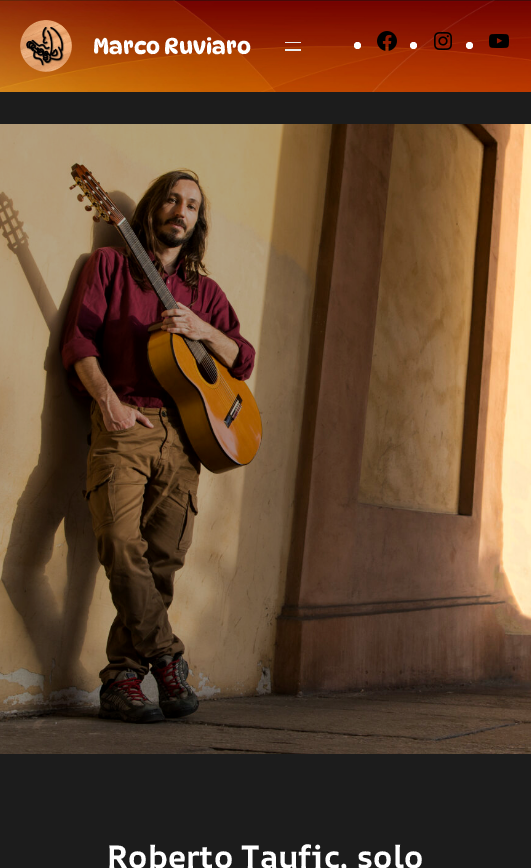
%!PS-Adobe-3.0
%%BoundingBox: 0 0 531 868
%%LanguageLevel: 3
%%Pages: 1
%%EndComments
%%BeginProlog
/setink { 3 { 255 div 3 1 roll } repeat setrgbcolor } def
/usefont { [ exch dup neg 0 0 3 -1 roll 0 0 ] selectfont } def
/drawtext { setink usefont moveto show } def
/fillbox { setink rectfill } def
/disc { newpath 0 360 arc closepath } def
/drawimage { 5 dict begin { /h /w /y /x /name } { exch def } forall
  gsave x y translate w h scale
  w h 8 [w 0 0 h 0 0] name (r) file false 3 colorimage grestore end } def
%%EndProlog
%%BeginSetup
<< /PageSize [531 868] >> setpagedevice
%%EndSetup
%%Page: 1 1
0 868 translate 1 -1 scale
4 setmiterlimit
0 0 531 868 28 28 28 fillbox
(assets/img1.rgb) 0 0 531 92 drawimage
(assets/img2.rgb) 20 20 52 52 drawimage
(Marco Ruviaro) 93 54 /DynaPuff-Medium 22 255 255 255 drawtext
285 42 16 1 237 237 237 fillbox
285 49 16 2 237 237 237 fillbox
255 255 255 setink
357.5 45.5 3.5 disc fill
(assets/img3.rgb) 377 31 20 20 drawimage
413.5 45.5 3.5 disc fill
(assets/img4.rgb) 434 32 18 18 drawimage
469.5 45.5 3.5 disc fill
(assets/img5.rgb) 489 34 20 14 drawimage
(assets/img6.rgb) 0 124 531 630 drawimage
(Roberto Taufic, solo) 107 868 /AROneSans-Bold 32 255 255 255 drawtext
showpage
%%EOF
